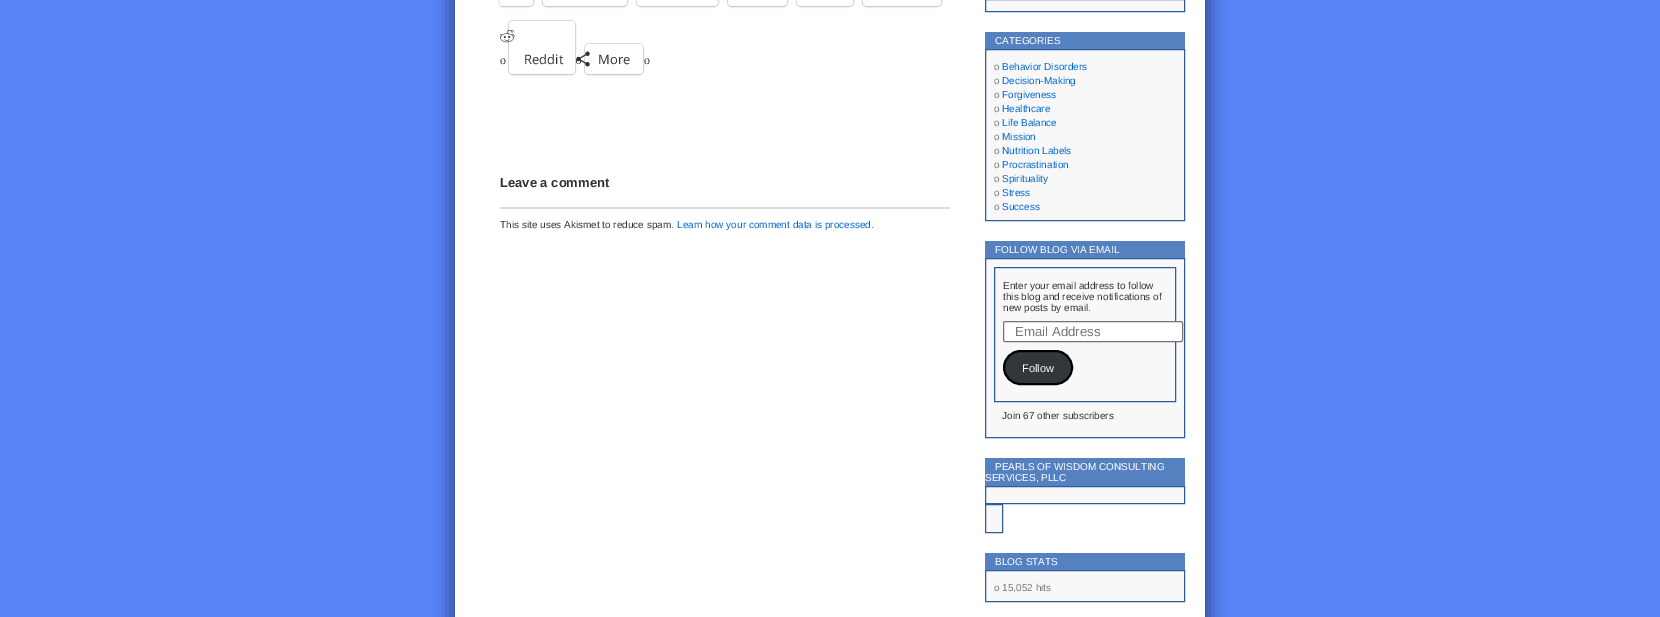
%!PS-Adobe-3.0
%%BoundingBox: 0 0 1660 617
%%LanguageLevel: 3
%%Pages: 1
%%EndComments
%%BeginProlog
/setink { 3 { 255 div 3 1 roll } repeat setrgbcolor } def
/usefont { [ exch dup neg 0 0 3 -1 roll 0 0 ] selectfont } def
/drawtext { setink usefont moveto show } def
/fillbox { setink rectfill } def
/setalpha { dup .setfillconstantalpha .setstrokeconstantalpha } def
/rrect { 5 dict begin { /r /h /w /y /x } { exch def } forall
  x r add y moveto x w add y 2 copy h add r arct x w add y h add x 1 index r arct
  x y h add x y r arct x y 2 copy exch w add exch r arct closepath end } def
/softshadow { 12 dict begin { /a /b /q /h /w /y /x } { exch def } forall gsave /was 0 def
  9 -2 -9 { dup b mul 4 div /e exch def 1 sub .425 mul 2.718 exch exp 1 add a .99 .min exch div /now exch def
    1 1 now sub 1 was sub div sub setalpha /was now def
    w h .min e 2 mul add 0 gt { x e sub y e sub w e 2 mul add h e 2 mul add
      q e add b .6 mul add w h .min 2 div e add .min 0 .max rrect fill } if } for grestore end } def
/drawimage { 5 dict begin { /h /w /y /x /name } { exch def } forall
  gsave x y translate w h scale
  w h 8 [w 0 0 h 0 0] name (r) file false 3 colorimage grestore end } def
%%EndProlog
%%BeginSetup
<< /PageSize [1660 617] /PageUsesTransparency true >> setpagedevice
%%EndSetup
%%Page: 1 1
0 .pushpdf14devicefilter
0 617 translate 1 -1 scale
4 setmiterlimit
0 0 1660 617 88 132 249 fillbox
0 0 0 setink
447 -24 750 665 0 8 0.3 softshadow
463 -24 750 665 0 8 0.3 softshadow
455 0 750 617 255 255 255 fillbox
gsave
500 0 450 144 rectclip
224 224 224 setink
498.5 -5.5 35 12 4.5 rrect stroke
grestore
0 0 0 setink
499 -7 34 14 4 1 0.12 softshadow
gsave
500 0 450 144 rectclip
255 255 255 setink
499 -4 34 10 4 rrect fill
grestore
224 224 224 setink
542.5 -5.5 85 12 4.5 rrect stroke
0 0 0 setink
543 -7 84 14 4 1 0.12 softshadow
255 255 255 setink
543 -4 84 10 4 rrect fill
224 224 224 setink
636.5 -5.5 82 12 4.5 rrect stroke
0 0 0 setink
637 -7 81 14 4 1 0.12 softshadow
255 255 255 setink
637 -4 81 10 4 rrect fill
224 224 224 setink
727.5 -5.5 60 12 4.5 rrect stroke
0 0 0 setink
728 -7 59 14 4 1 0.12 softshadow
255 255 255 setink
728 -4 59 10 4 rrect fill
224 224 224 setink
796.5 -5.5 57 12 4.5 rrect stroke
0 0 0 setink
797 -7 56 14 4 1 0.12 softshadow
255 255 255 setink
797 -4 56 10 4 rrect fill
224 224 224 setink
862.5 -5.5 79 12 4.5 rrect stroke
0 0 0 setink
863 -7 78 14 4 1 0.12 softshadow
255 255 255 setink
863 -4 78 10 4 rrect fill
(o) 500 64 /LiberationSerif-Regular 12 51 51 51 drawtext
224 224 224 setink
508.5 20.5 67 54 4.5 rrect stroke
0 0 0 setink
509 22 66 53 4 1 0.12 softshadow
255 255 255 setink
509 21 66 53 4 rrect fill
(assets/img1.rgb) 500 29 15 14 drawimage
(Reddit) 524 64 /OpenSans-Regular 13 44 51 56 drawtext
(o) 576 64 /LiberationSerif-Regular 12 51 51 51 drawtext
224 224 224 setink
584.5 43.5 59 31 4.5 rrect stroke
0 0 0 setink
585 45 58 30 4 1 0.12 softshadow
255 255 255 setink
585 44 58 30 4 rrect fill
(assets/img2.rgb) 576 51 14 16 drawimage
(More) 598 64 /OpenSans-Regular 13 44 51 56 drawtext
(o) 644 64 /LiberationSerif-Regular 12 51 51 51 drawtext
(Leave a comment) 500 187 /LiberationSans-Bold 13 51 51 51 drawtext
500 207 450 2 220 220 222 fillbox
(This site uses Akismet to reduce spam.) 500 228 /LiberationSans-Regular 10 51 51 51 drawtext
(Learn how your comment data is processed.) 677 228 /LiberationSans-Regular 10 0 102 204 drawtext
248 248 248 setink
985.5 -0.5 moveto 1184.5 -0.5 lineto 1184.5 11.5 lineto 985.5 11.5 lineto closepath gsave fill grestore
46 93 153 setink
stroke
985 32 200 17 85 129 192 fillbox
(CATEGORIES) 995 44 /LiberationSans-Regular 10 255 255 255 drawtext
248 248 248 setink
985.5 49.5 moveto 1184.5 49.5 lineto 1184.5 220.5 lineto 985.5 220.5 lineto closepath gsave fill grestore
46 93 153 setink
stroke
(o) 994 70 /LiberationSans-Regular 10 119 119 119 drawtext
(Behavior Disorders) 1002 70 /LiberationSans-Regular 10 0 102 204 drawtext
(o) 994 84 /LiberationSans-Regular 10 119 119 119 drawtext
(Decision-Making) 1002 84 /LiberationSans-Regular 10 0 102 204 drawtext
(o) 994 98 /LiberationSans-Regular 10 119 119 119 drawtext
(Forgiveness) 1002 98 /LiberationSans-Regular 10 0 102 204 drawtext
(o) 994 112 /LiberationSans-Regular 10 119 119 119 drawtext
(Healthcare) 1002 112 /LiberationSans-Regular 10 0 102 204 drawtext
(o) 994 126 /LiberationSans-Regular 10 119 119 119 drawtext
(Life Balance) 1002 126 /LiberationSans-Regular 10 0 102 204 drawtext
(o) 994 140 /LiberationSans-Regular 10 119 119 119 drawtext
(Mission) 1002 140 /LiberationSans-Regular 10 0 102 204 drawtext
(o) 994 154 /LiberationSans-Regular 10 119 119 119 drawtext
(Nutrition Labels) 1002 154 /LiberationSans-Regular 10 0 102 204 drawtext
(o) 994 168 /LiberationSans-Regular 10 119 119 119 drawtext
(Procrastination) 1002 168 /LiberationSans-Regular 10 0 102 204 drawtext
(o) 994 182 /LiberationSans-Regular 10 119 119 119 drawtext
(Spirituality) 1002 182 /LiberationSans-Regular 10 0 102 204 drawtext
(o) 994 196 /LiberationSans-Regular 10 119 119 119 drawtext
(Stress) 1002 196 /LiberationSans-Regular 10 0 102 204 drawtext
(o) 994 210 /LiberationSans-Regular 10 119 119 119 drawtext
(Success) 1002 210 /LiberationSans-Regular 10 0 102 204 drawtext
985 241 200 17 85 129 192 fillbox
(FOLLOW BLOG VIA EMAIL) 995 253 /LiberationSans-Regular 10 255 255 255 drawtext
248 248 248 setink
985.5 258.5 moveto 1184.5 258.5 lineto 1184.5 437.5 lineto 985.5 437.5 lineto closepath gsave fill grestore
46 93 153 setink
stroke
994.5 267.5 181 134 rectstroke
(Enter your email address to follow) 1003 289 /LiberationSans-Regular 10 51 51 51 drawtext
(this blog and receive notifications of) 1003 300 /LiberationSans-Regular 10 51 51 51 drawtext
(new posts by email.) 1003 311 /LiberationSans-Regular 10 51 51 51 drawtext
255 255 255 setink
1003.5 321.5 179 20 1.5 rrect gsave fill grestore
118 118 118 setink
stroke
(Email Address) 1015 336 /LiberationSans-Regular 13.25 119 119 119 drawtext
50 55 60 setink
1004 351 68 33 16.5 rrect gsave fill grestore
0 0 0 setink
2 setlinewidth
stroke
(Follow) 1022 372 /LiberationSans-Regular 11 255 255 255 drawtext
(Join 67 other subscribers) 1002 419 /LiberationSans-Regular 10 51 51 51 drawtext
985 458 200 28 85 129 192 fillbox
(PEARLS OF WISDOM CONSULTING) 995 470 /LiberationSans-Regular 10 255 255 255 drawtext
(SERVICES, PLLC) 985 481 /LiberationSans-Regular 10 255 255 255 drawtext
248 248 248 setink
985.5 486.5 moveto 1184.5 486.5 lineto 1184.5 503.5 lineto 985.5 503.5 lineto closepath gsave fill grestore
46 93 153 setink
1 setlinewidth
stroke
248 248 248 setink
985.5 504.5 moveto 1002.5 504.5 lineto 1002.5 532.5 lineto 985.5 532.5 lineto closepath gsave fill grestore
46 93 153 setink
stroke
985 553 200 17 85 129 192 fillbox
(BLOG STATS) 995 565 /LiberationSans-Regular 10 255 255 255 drawtext
248 248 248 setink
985.5 570.5 moveto 1184.5 570.5 lineto 1184.5 601.5 lineto 985.5 601.5 lineto closepath gsave fill grestore
46 93 153 setink
stroke
(o 15,052 hits) 994 591 /LiberationSans-Regular 10 119 119 119 drawtext
.poppdf14devicefilter showpage
%%EOF
